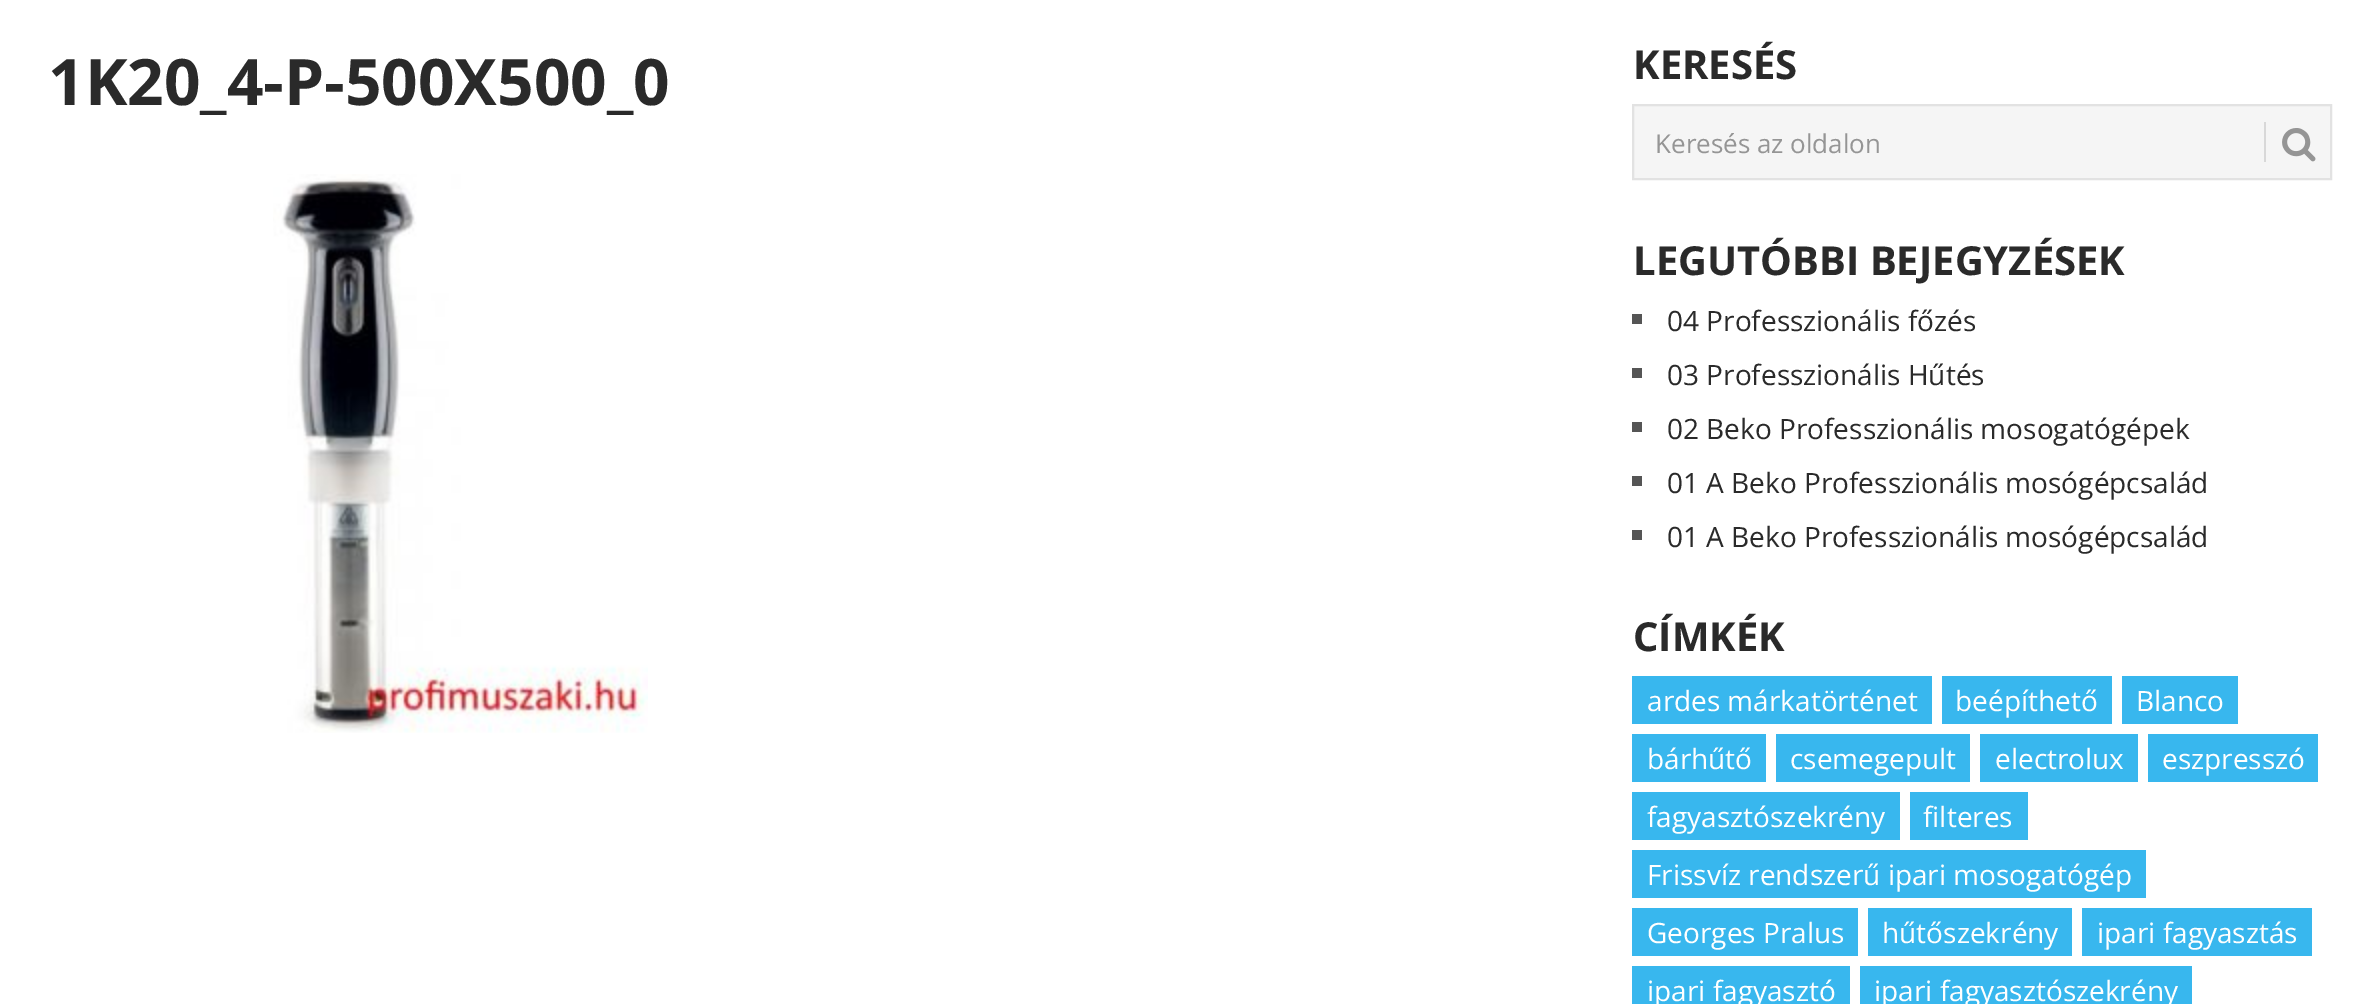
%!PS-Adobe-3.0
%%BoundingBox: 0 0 2380 1004
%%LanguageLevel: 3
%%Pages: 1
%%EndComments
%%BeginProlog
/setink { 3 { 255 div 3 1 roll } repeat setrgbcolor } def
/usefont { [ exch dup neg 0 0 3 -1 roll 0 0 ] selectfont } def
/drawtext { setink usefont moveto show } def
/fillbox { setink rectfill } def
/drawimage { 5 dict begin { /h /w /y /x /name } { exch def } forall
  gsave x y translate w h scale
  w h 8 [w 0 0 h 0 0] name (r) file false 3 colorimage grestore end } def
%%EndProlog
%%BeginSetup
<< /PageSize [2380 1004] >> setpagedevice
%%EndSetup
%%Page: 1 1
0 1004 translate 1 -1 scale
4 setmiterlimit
0 0 2380 1004 255 255 255 fillbox
(1K20_4-P-500X500_0) 48 105 /OpenSans-Bold 64 42 42 42 drawtext
(assets/img1.rgb) 273 174 375 559 drawimage
(KERESÉS) 1633 79 /OpenSans-Bold 40 42 42 42 drawtext
245 245 245 setink
1633 105 moveto 2331 105 lineto 2331 179 lineto 1633 179 lineto closepath gsave fill grestore
226 226 226 setink
2 setlinewidth
stroke
(Keresés az oldalon) 1655 153 /OpenSans-Regular 26 149 149 149 drawtext
2264 122 2 40 216 216 216 fillbox
(assets/img2.rgb) 2282 128 34 34 drawimage
(LEGUTÓBBI BEJEGYZÉSEK) 1633 275 /OpenSans-Bold 40 42 42 42 drawtext
1632 314 10 10 85 85 85 fillbox
(04 Professzionális főzés) 1667 331 /OpenSans-Regular 28 42 42 42 drawtext
1632 368 10 10 85 85 85 fillbox
(03 Professzionális Hűtés) 1667 385 /OpenSans-Regular 28 42 42 42 drawtext
1632 422 10 10 85 85 85 fillbox
(02 Beko Professzionális mosogatógépek) 1667 439 /OpenSans-Regular 28 42 42 42 drawtext
1632 476 10 10 85 85 85 fillbox
(01 A Beko Professzionális mosógépcsalád) 1667 493 /OpenSans-Regular 28 42 42 42 drawtext
1632 530 10 10 85 85 85 fillbox
(01 A Beko Professzionális mosógépcsalád) 1667 547 /OpenSans-Regular 28 42 42 42 drawtext
(CÍMKÉK) 1633 651 /OpenSans-Bold 40 42 42 42 drawtext
1632 676 300 48 56 183 238 fillbox
(ardes márkatörténet) 1647 711 /OpenSans-Regular 28 255 255 255 drawtext
1942 676 170 48 56 183 238 fillbox
(beépíthető) 1955 711 /OpenSans-Regular 28 255 255 255 drawtext
2122 676 116 48 56 183 238 fillbox
(Blanco) 2136 711 /OpenSans-Regular 28 255 255 255 drawtext
1632 734 134 48 56 183 238 fillbox
(bárhűtő) 1647 769 /OpenSans-Regular 28 255 255 255 drawtext
1776 734 194 48 56 183 238 fillbox
(csemegepult) 1790 769 /OpenSans-Regular 28 255 255 255 drawtext
1980 734 158 48 56 183 238 fillbox
(electrolux) 1995 769 /OpenSans-Regular 28 255 255 255 drawtext
2148 734 170 48 56 183 238 fillbox
(eszpresszó) 2162 769 /OpenSans-Regular 28 255 255 255 drawtext
1632 792 268 48 56 183 238 fillbox
(fagyasztószekrény) 1647 827 /OpenSans-Regular 28 255 255 255 drawtext
1910 792 118 48 56 183 238 fillbox
(filteres) 1923 827 /OpenSans-Regular 28 255 255 255 drawtext
1632 850 514 48 56 183 238 fillbox
(Frissvíz rendszerű ipari mosogatógép) 1647 885 /OpenSans-Regular 28 255 255 255 drawtext
1632 908 226 48 56 183 238 fillbox
(Georges Pralus) 1647 943 /OpenSans-Regular 28 255 255 255 drawtext
1868 908 204 48 56 183 238 fillbox
(hűtőszekrény) 1882 943 /OpenSans-Regular 28 255 255 255 drawtext
2082 908 230 48 56 183 238 fillbox
(ipari fagyasztás) 2097 943 /OpenSans-Regular 28 255 255 255 drawtext
1632 966 218 38 56 183 238 fillbox
(ipari fagyasztó) 1647 1001 /OpenSans-Regular 28 255 255 255 drawtext
1860 966 332 38 56 183 238 fillbox
(ipari fagyasztószekrény) 1874 1001 /OpenSans-Regular 28 255 255 255 drawtext
showpage
%%EOF
